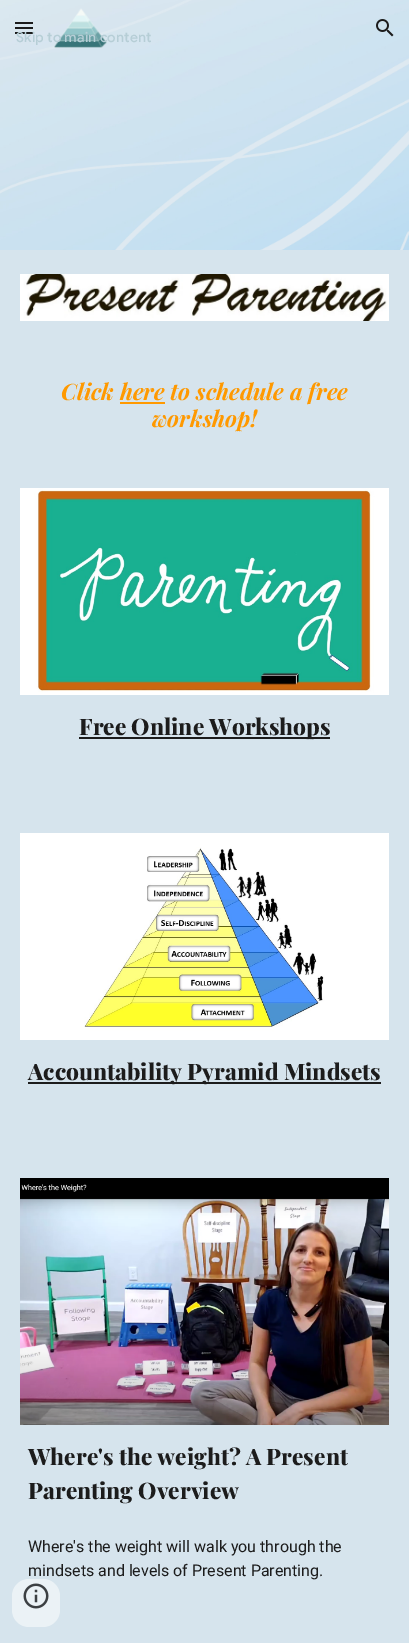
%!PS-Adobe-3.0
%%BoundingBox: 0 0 409 1643
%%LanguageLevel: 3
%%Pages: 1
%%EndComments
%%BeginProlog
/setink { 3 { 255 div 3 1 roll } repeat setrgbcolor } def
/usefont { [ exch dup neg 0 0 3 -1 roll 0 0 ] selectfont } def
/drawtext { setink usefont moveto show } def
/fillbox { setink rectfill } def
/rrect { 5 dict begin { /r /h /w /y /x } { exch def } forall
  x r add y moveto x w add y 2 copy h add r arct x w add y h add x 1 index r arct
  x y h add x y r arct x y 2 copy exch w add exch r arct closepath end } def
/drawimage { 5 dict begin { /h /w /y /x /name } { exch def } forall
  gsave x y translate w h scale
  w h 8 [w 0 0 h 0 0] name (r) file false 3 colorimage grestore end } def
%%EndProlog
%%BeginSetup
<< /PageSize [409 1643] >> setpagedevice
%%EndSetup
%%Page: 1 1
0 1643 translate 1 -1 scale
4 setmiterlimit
0 0 409 1643 214 228 237 fillbox
(assets/img3.rgb) 0 0 409 250 drawimage
15 32 18 2 28 28 28 fillbox
(assets/img1.rgb) 54 8 53 40 drawimage
/GoogleSans-Medium 14 usefont
182 206 214 setink
16 42 moveto 0.1 0 (Skip to main content) ashow
15 22 18 2 28 28 28 fillbox
15 27 18 2 28 28 28 fillbox
(assets/img2.rgb) 376 19 18 18 drawimage
(assets/img4.rgb) 20 274 369 47 drawimage
(Click here to schedule a free) 61 400 /PlayfairDisplay-BoldItalic 22.7 255 153 0 drawtext
120 402 45 2 255 153 0 fillbox
(workshop!) 152 427 /PlayfairDisplay-BoldItalic 22.7 255 153 0 drawtext
(assets/img5.rgb) 20 488 369 207 drawimage
79 737 251 2 28 28 28 fillbox
(Free Online Workshops) 79 735 /PlayfairDisplay-ExtraBold 22.7 28 28 28 drawtext
(assets/img6.rgb) 20 833 369 207 drawimage
28 1082 353 2 28 28 28 fillbox
(Accountability Pyramid Mindsets) 28 1080 /PlayfairDisplay-ExtraBold 22.7 28 28 28 drawtext
(assets/img7.rgb) 20 1178 369 247 drawimage
(Where's the weight? A Present) 28 1465 /PlayfairDisplay-ExtraBold 22.7 28 28 28 drawtext
(Parenting Overview) 28 1499 /PlayfairDisplay-ExtraBold 22.7 28 28 28 drawtext
(Where's the weight will walk you through the) 28 1552 /Roboto-Regular 16 28 28 28 drawtext
(mindsets and levels of Present Parenting.) 28 1576 /Roboto-Regular 16 28 28 28 drawtext
235 242 246 setink
12 1579 48 48 17 rrect fill
(assets/img8.rgb) 23 1583 26 26 drawimage
showpage
%%EOF
